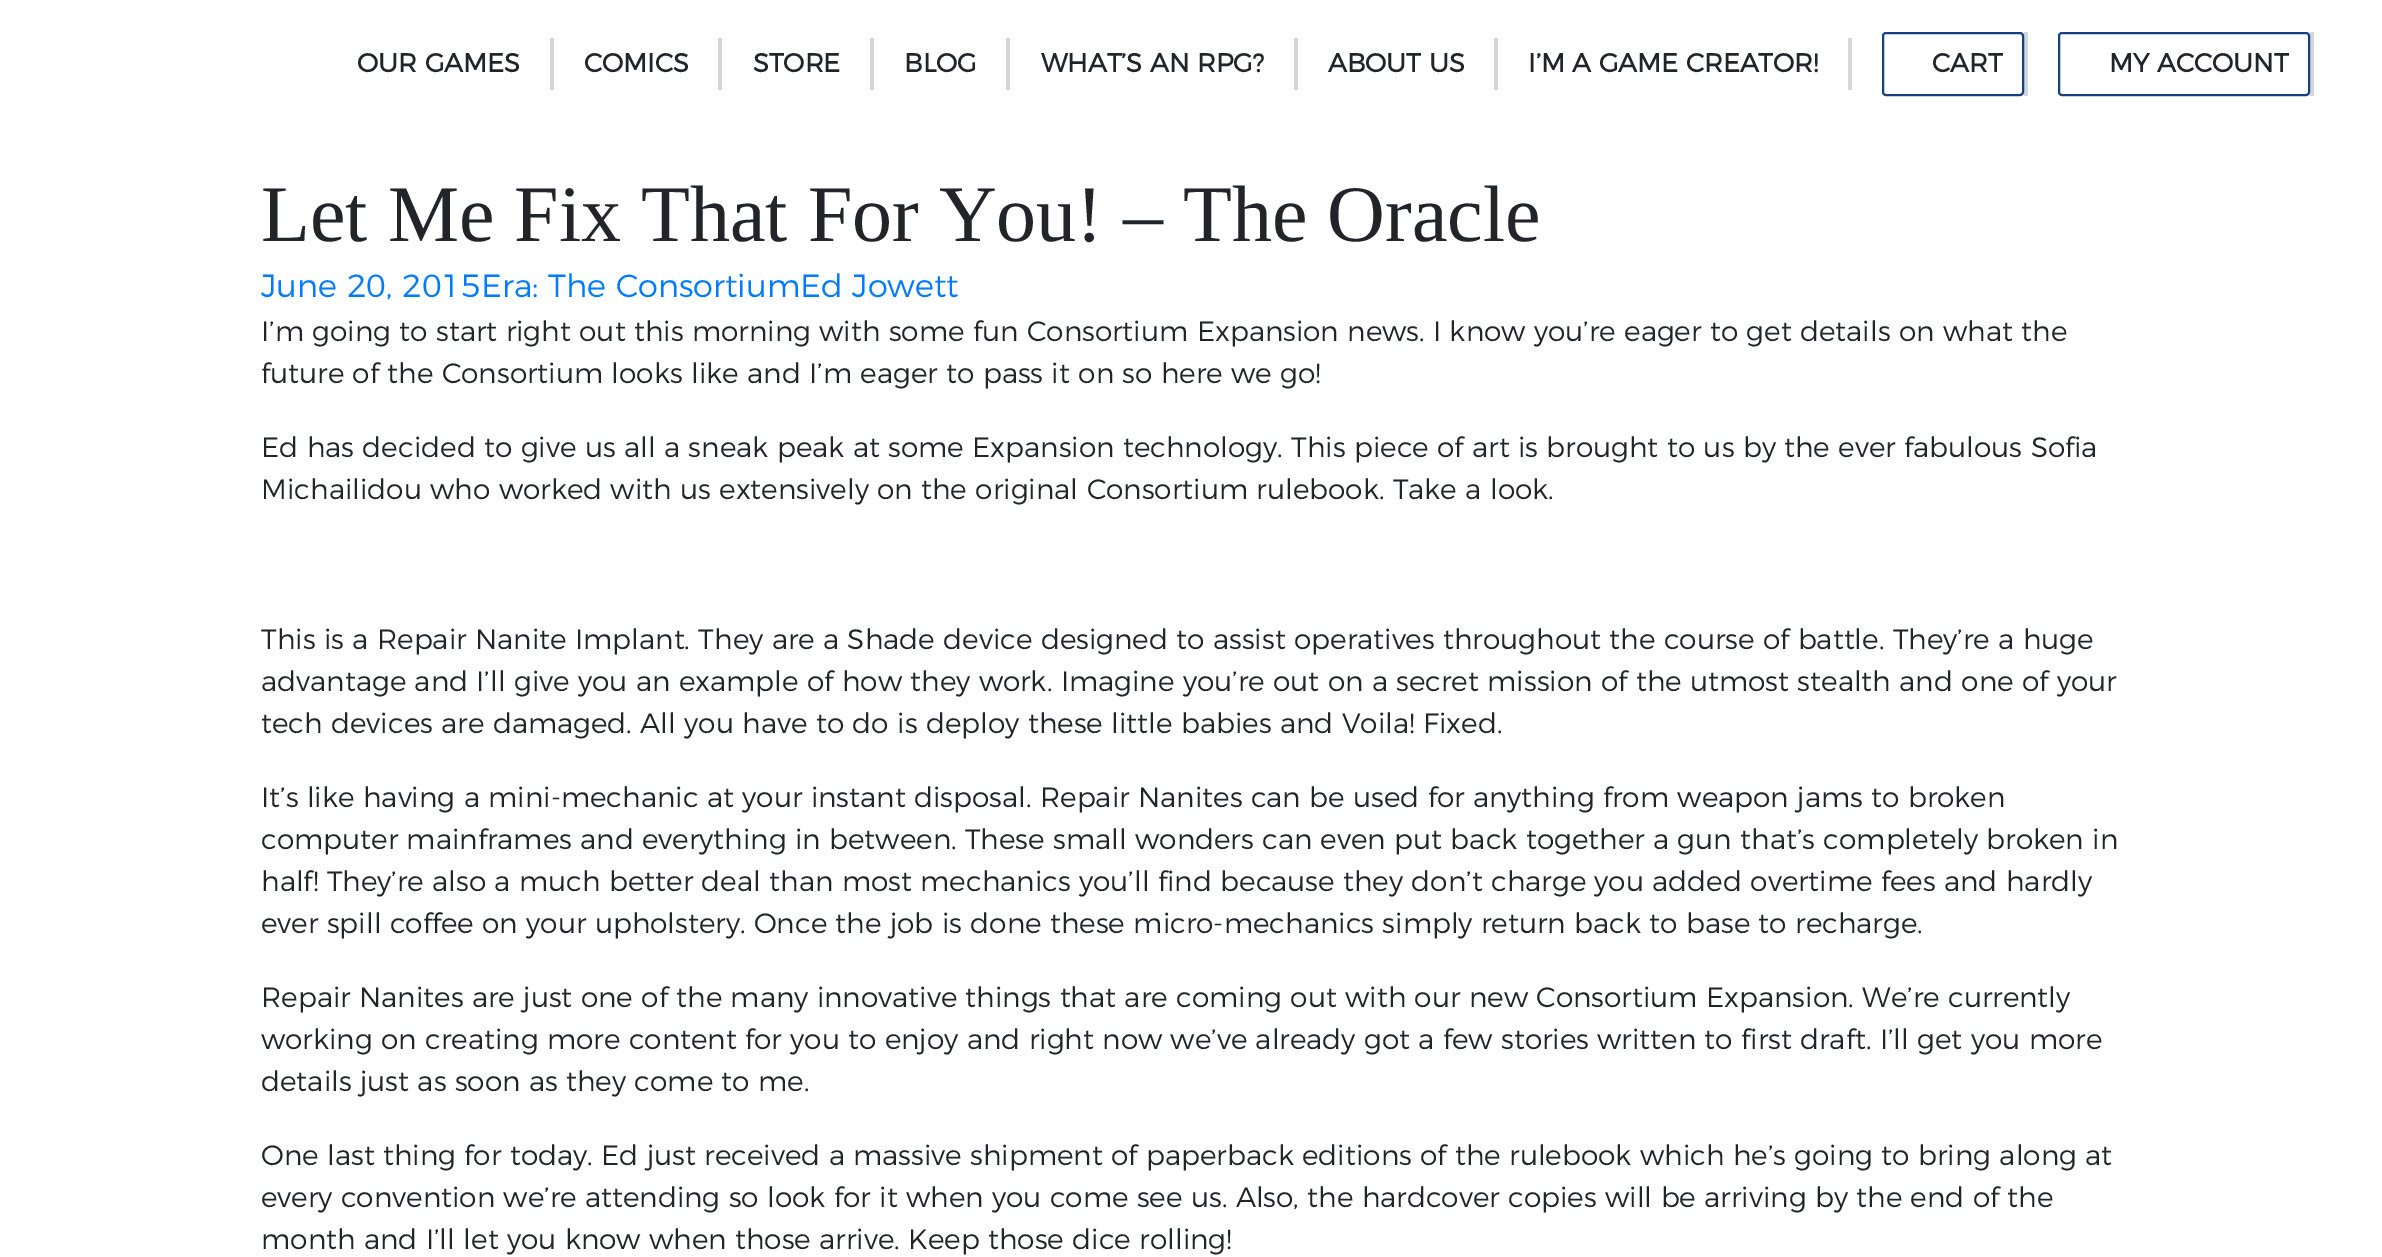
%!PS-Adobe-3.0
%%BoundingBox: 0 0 2382 1257
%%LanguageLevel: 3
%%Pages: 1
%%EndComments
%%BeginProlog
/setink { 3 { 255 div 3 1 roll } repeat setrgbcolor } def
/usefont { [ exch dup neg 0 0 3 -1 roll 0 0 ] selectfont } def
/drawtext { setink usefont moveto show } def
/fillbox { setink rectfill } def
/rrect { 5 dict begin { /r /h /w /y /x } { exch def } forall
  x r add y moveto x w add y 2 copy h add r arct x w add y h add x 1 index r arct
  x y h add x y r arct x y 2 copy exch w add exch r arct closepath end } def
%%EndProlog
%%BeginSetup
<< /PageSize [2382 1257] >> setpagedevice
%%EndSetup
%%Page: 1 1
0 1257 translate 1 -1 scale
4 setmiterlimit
0 0 2382 1257 255 255 255 fillbox
550 38 4 52 215 215 215 fillbox
(OUR GAMES) 357 72 /Montserrat-Bold 26 33 37 41 drawtext
718 38 4 52 215 215 215 fillbox
(COMICS) 584 72 /Montserrat-Bold 26 33 37 41 drawtext
870 38 4 52 215 215 215 fillbox
(STORE) 753 72 /Montserrat-Bold 26 33 37 41 drawtext
1006 38 4 52 215 215 215 fillbox
(BLOG) 904 72 /Montserrat-Bold 26 33 37 41 drawtext
1294 38 4 52 215 215 215 fillbox
(WHAT’S AN RPG?) 1041 72 /Montserrat-Bold 26 33 37 41 drawtext
1494 38 4 52 215 215 215 fillbox
(ABOUT US) 1328 72 /Montserrat-Bold 26 33 37 41 drawtext
1848 38 4 52 215 215 215 fillbox
(I’M A GAME CREATOR!) 1528 72 /Montserrat-Bold 26 33 37 41 drawtext
2024 32 4 64 215 215 215 fillbox
21 64 136 setink
2 setlinewidth
1883 33 140 62 3 rrect stroke
(CART) 1932 72 /Montserrat-Bold 26 33 37 41 drawtext
2310 32 4 64 215 215 215 fillbox
21 64 136 setink
2059 33 250 62 3 rrect stroke
(MY ACCOUNT) 2109 72 /Montserrat-Bold 26 33 37 41 drawtext
(Let Me Fix That For You! – The Oracle) 261 241 /LiberationSerif-Regular 80 33 37 41 drawtext
(June 20, 2015Era: The ConsortiumEd Jowett) 261 297 /Montserrat-Light 32 0 123 255 drawtext
(I’m going to start right out this morning with some fun Consortium Expansion news. I know you’re eager to get details on what the) 261 341 /Montserrat-Light 28 33 37 41 drawtext
(future of the Consortium looks like and I’m eager to pass it on so here we go!) 261 383 /Montserrat-Light 28 33 37 41 drawtext
(Ed has decided to give us all a sneak peak at some Expansion technology. This piece of art is brought to us by the ever fabulous Sofia) 261 457 /Montserrat-Light 28 33 37 41 drawtext
(Michailidou who worked with us extensively on the original Consortium rulebook. Take a look.) 261 499 /Montserrat-Light 28 33 37 41 drawtext
(This is a Repair Nanite Implant. They are a Shade device designed to assist operatives throughout the course of battle. They’re a huge) 261 649 /Montserrat-Light 28 33 37 41 drawtext
(advantage and I’ll give you an example of how they work. Imagine you’re out on a secret mission of the utmost stealth and one of your) 261 691 /Montserrat-Light 28 33 37 41 drawtext
(tech devices are damaged. All you have to do is deploy these little babies and Voila! Fixed.) 261 733 /Montserrat-Light 28 33 37 41 drawtext
(It’s like having a mini-mechanic at your instant disposal. Repair Nanites can be used for anything from weapon jams to broken) 261 807 /Montserrat-Light 28 33 37 41 drawtext
(computer mainframes and everything in between. These small wonders can even put back together a gun that’s completely broken in) 261 849 /Montserrat-Light 28 33 37 41 drawtext
(half! They’re also a much better deal than most mechanics you’ll find because they don’t charge you added overtime fees and hardly) 261 891 /Montserrat-Light 28 33 37 41 drawtext
(ever spill coffee on your upholstery. Once the job is done these micro-mechanics simply return back to base to recharge.) 261 933 /Montserrat-Light 28 33 37 41 drawtext
(Repair Nanites are just one of the many innovative things that are coming out with our new Consortium Expansion. We’re currently) 261 1007 /Montserrat-Light 28 33 37 41 drawtext
(working on creating more content for you to enjoy and right now we’ve already got a few stories written to first draft. I’ll get you more) 261 1049 /Montserrat-Light 28 33 37 41 drawtext
(details just as soon as they come to me.) 261 1091 /Montserrat-Light 28 33 37 41 drawtext
(One last thing for today. Ed just received a massive shipment of paperback editions of the rulebook which he’s going to bring along at) 261 1165 /Montserrat-Light 28 33 37 41 drawtext
(every convention we’re attending so look for it when you come see us. Also, the hardcover copies will be arriving by the end of the) 261 1207 /Montserrat-Light 28 33 37 41 drawtext
(month and I’ll let you know when those arrive. Keep those dice rolling!) 261 1249 /Montserrat-Light 28 33 37 41 drawtext
showpage
%%EOF
